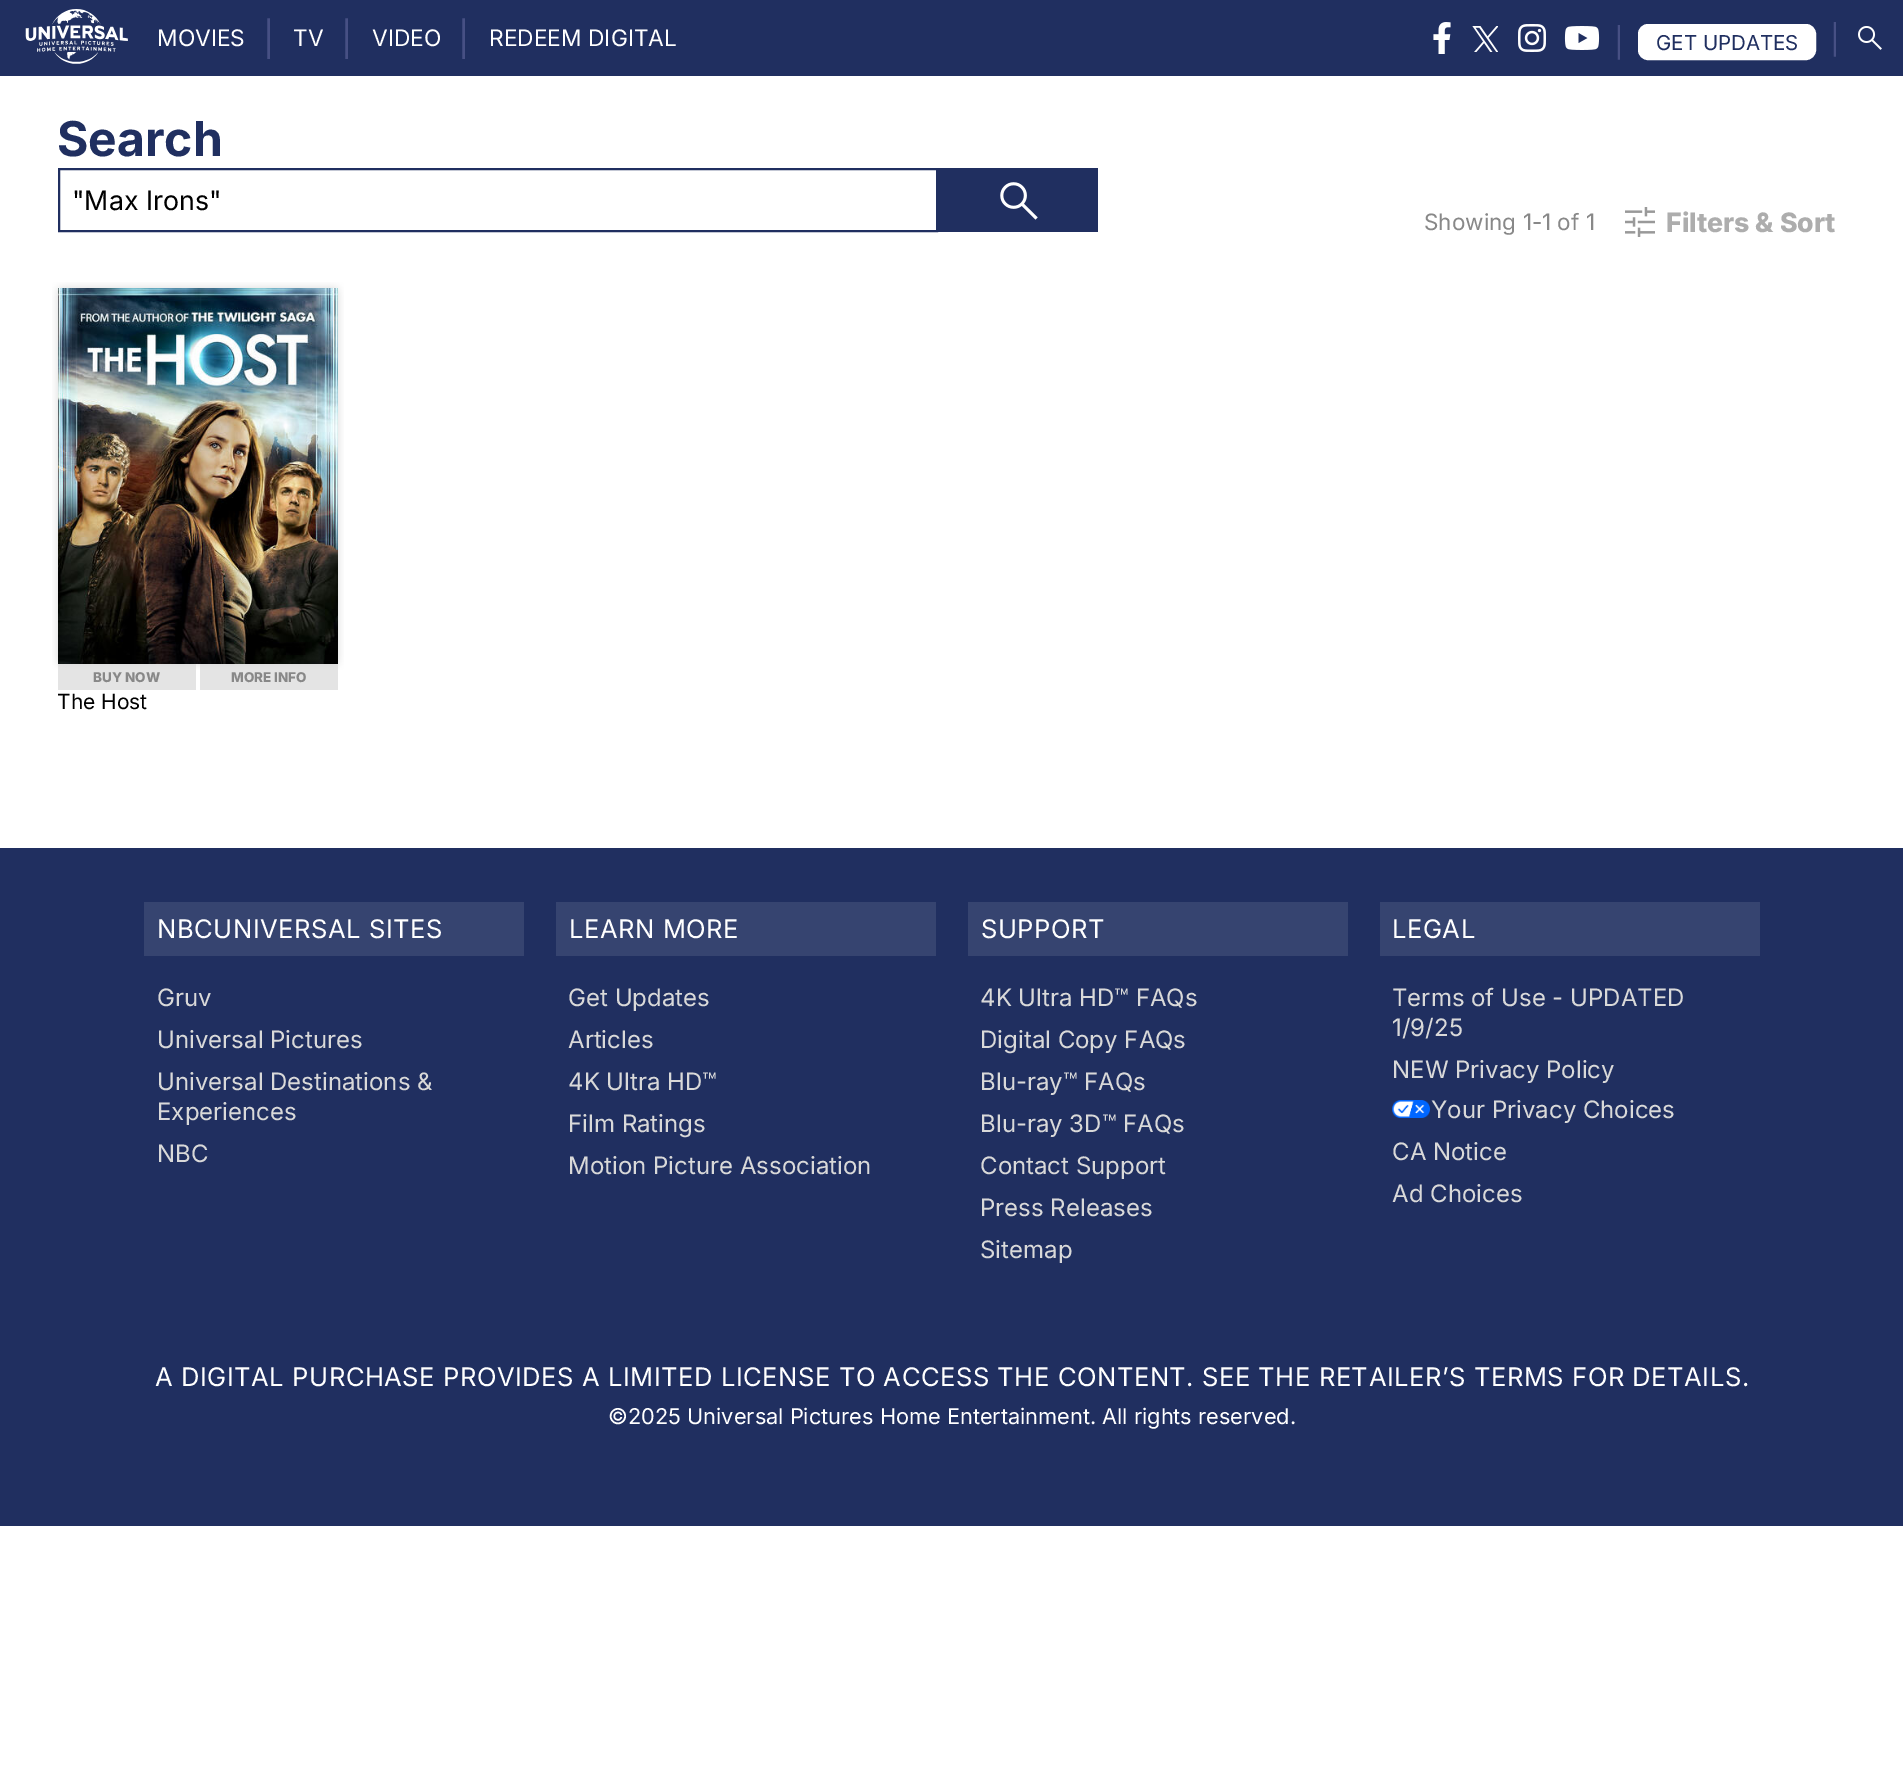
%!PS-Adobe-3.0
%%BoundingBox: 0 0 1903 1777
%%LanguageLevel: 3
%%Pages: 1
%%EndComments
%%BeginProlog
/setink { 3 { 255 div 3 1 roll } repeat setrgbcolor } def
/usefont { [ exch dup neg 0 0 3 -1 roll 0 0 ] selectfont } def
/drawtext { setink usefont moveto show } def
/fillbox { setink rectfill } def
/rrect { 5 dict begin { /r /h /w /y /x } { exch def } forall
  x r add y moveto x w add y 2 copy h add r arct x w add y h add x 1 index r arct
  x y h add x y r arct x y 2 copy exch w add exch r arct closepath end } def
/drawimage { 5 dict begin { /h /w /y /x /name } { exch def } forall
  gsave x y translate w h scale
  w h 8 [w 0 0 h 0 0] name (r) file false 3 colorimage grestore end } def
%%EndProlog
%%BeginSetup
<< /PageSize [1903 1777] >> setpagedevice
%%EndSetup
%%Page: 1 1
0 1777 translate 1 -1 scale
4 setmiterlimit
0 0 1903 1777 255 255 255 fillbox
0 0 1903 76 32 47 96 fillbox
(assets/img1.rgb) 25 9 103 55 drawimage
(MOVIES) 157 46 /Inter-Regular 22.75 255 255 255 drawtext
(|) 263 51 /Inter-Regular 34 71 80 132 drawtext
(TV) 293 46 /Inter-Regular 22.75 255 255 255 drawtext
(|) 341 51 /Inter-Regular 34 71 80 132 drawtext
(VIDEO) 372 46 /Inter-Regular 22.75 255 255 255 drawtext
(|) 458 51 /Inter-Regular 34 71 80 132 drawtext
(REDEEM DIGITAL) 489 46 /Inter-Regular 22.75 255 255 255 drawtext
(assets/img2.rgb) 1433 22 18 32 drawimage
(assets/img3.rgb) 1472 26 26 26 drawimage
(assets/img4.rgb) 1518 24 28 28 drawimage
(assets/img5.rgb) 1564 26 36 24 drawimage
(|) 1614 53 /Inter-Regular 29 71 80 132 drawtext
255 255 255 setink
1639 25 176 34 9 rrect gsave fill grestore
2 setlinewidth
stroke
(GET UPDATES) 1656 50 /Inter-Regular 20.5 32 47 96 drawtext
(|) 1830 50 /Inter-Regular 29 71 80 132 drawtext
(assets/img6.rgb) 1858 26 24 24 drawimage
(Search) 57 156 /Inter-Bold 48 32 47 96 drawtext
59 169 878 62 rectstroke
("Max Irons") 72 210 /Inter-Regular 26.75 0 0 0 drawtext
938 168 160 64 32 47 96 fillbox
(assets/img7.rgb) 1000 182 38 38 drawimage
(assets/img8.rgb) 1625 207 30 30 drawimage
(Filters & Sort) 1666 232 /Inter-ExtraBold 26.75 173 173 173 drawtext
(Showing 1-1 of 1) 1424 230 /Inter-Regular 22.5 136 136 136 drawtext
58 664 138 26 228 228 228 fillbox
200 664 138 26 228 228 228 fillbox
(assets/img9.rgb) 52 282 292 388 drawimage
(BUY NOW) 93 682 /Inter-ExtraBold 13.5 136 136 136 drawtext
(MORE INFO) 231 682 /Inter-ExtraBold 13.5 136 136 136 drawtext
(The Host) 57 709 /Inter-Regular 21 0 0 0 drawtext
0 848 1903 678 32 47 96 fillbox
144 902 380 54 54 68 112 fillbox
/Inter-Regular 25.6 usefont
255 255 255 setink
157 938 moveto 0.51 0 (NBCUNIVERSAL SITES) ashow
(Gruv) 157 1006 /Inter-Regular 24 217 217 217 drawtext
(Universal Pictures) 157 1048 /Inter-Regular 24 217 217 217 drawtext
(Universal Destinations &) 157 1090 /Inter-Regular 24 217 217 217 drawtext
(Experiences) 157 1120 /Inter-Regular 24 217 217 217 drawtext
(NBC) 157 1162 /Inter-Regular 24 217 217 217 drawtext
556 902 380 54 54 68 112 fillbox
/Inter-Regular 25.6 usefont
255 255 255 setink
569 938 moveto 0.51 0 (LEARN MORE) ashow
(Get Updates) 568 1006 /Inter-Regular 24 217 217 217 drawtext
(Articles) 568 1048 /Inter-Regular 24 217 217 217 drawtext
(4K Ultra HD™) 568 1090 /Inter-Regular 24 217 217 217 drawtext
(Film Ratings) 568 1132 /Inter-Regular 24 217 217 217 drawtext
(Motion Picture Association) 568 1174 /Inter-Regular 24 217 217 217 drawtext
968 902 380 54 54 68 112 fillbox
/Inter-Regular 25.6 usefont
255 255 255 setink
981 938 moveto 0.51 0 (SUPPORT) ashow
(4K Ultra HD™ FAQs) 980 1006 /Inter-Regular 24 217 217 217 drawtext
(Digital Copy FAQs) 980 1048 /Inter-Regular 24 217 217 217 drawtext
(Blu-ray™ FAQs) 980 1090 /Inter-Regular 24 217 217 217 drawtext
(Blu-ray 3D™ FAQs) 980 1132 /Inter-Regular 24 217 217 217 drawtext
(Contact Support) 980 1174 /Inter-Regular 24 217 217 217 drawtext
(Press Releases) 980 1216 /Inter-Regular 24 217 217 217 drawtext
(Sitemap) 980 1258 /Inter-Regular 24 217 217 217 drawtext
1380 902 380 54 54 68 112 fillbox
/Inter-Regular 25.6 usefont
255 255 255 setink
1392 938 moveto 0.51 0 (LEGAL) ashow
(Terms of Use - UPDATED) 1392 1006 /Inter-Regular 24 217 217 217 drawtext
(1/9/25) 1392 1036 /Inter-Regular 24 217 217 217 drawtext
(NEW Privacy Policy) 1392 1078 /Inter-Regular 24 217 217 217 drawtext
(assets/img10.rgb) 1392 1100 38 18 drawimage
(Your Privacy Choices) 1431 1118 /Inter-Regular 24 217 217 217 drawtext
(CA Notice) 1392 1160 /Inter-Regular 24 217 217 217 drawtext
(Ad Choices) 1392 1202 /Inter-Regular 24 217 217 217 drawtext
/Inter-Regular 25.6 usefont
255 255 255 setink
155 1386 moveto 0.51 0 (A DIGITAL PURCHASE PROVIDES A LIMITED LICENSE TO ACCESS THE CONTENT. SEE THE RETAILER’S TERMS FOR DETAILS.) ashow
(©2025 Universal Pictures Home Entertainment. All rights reserved.) 608 1424 /Inter-Regular 21.75 255 255 255 drawtext
showpage
%%EOF
